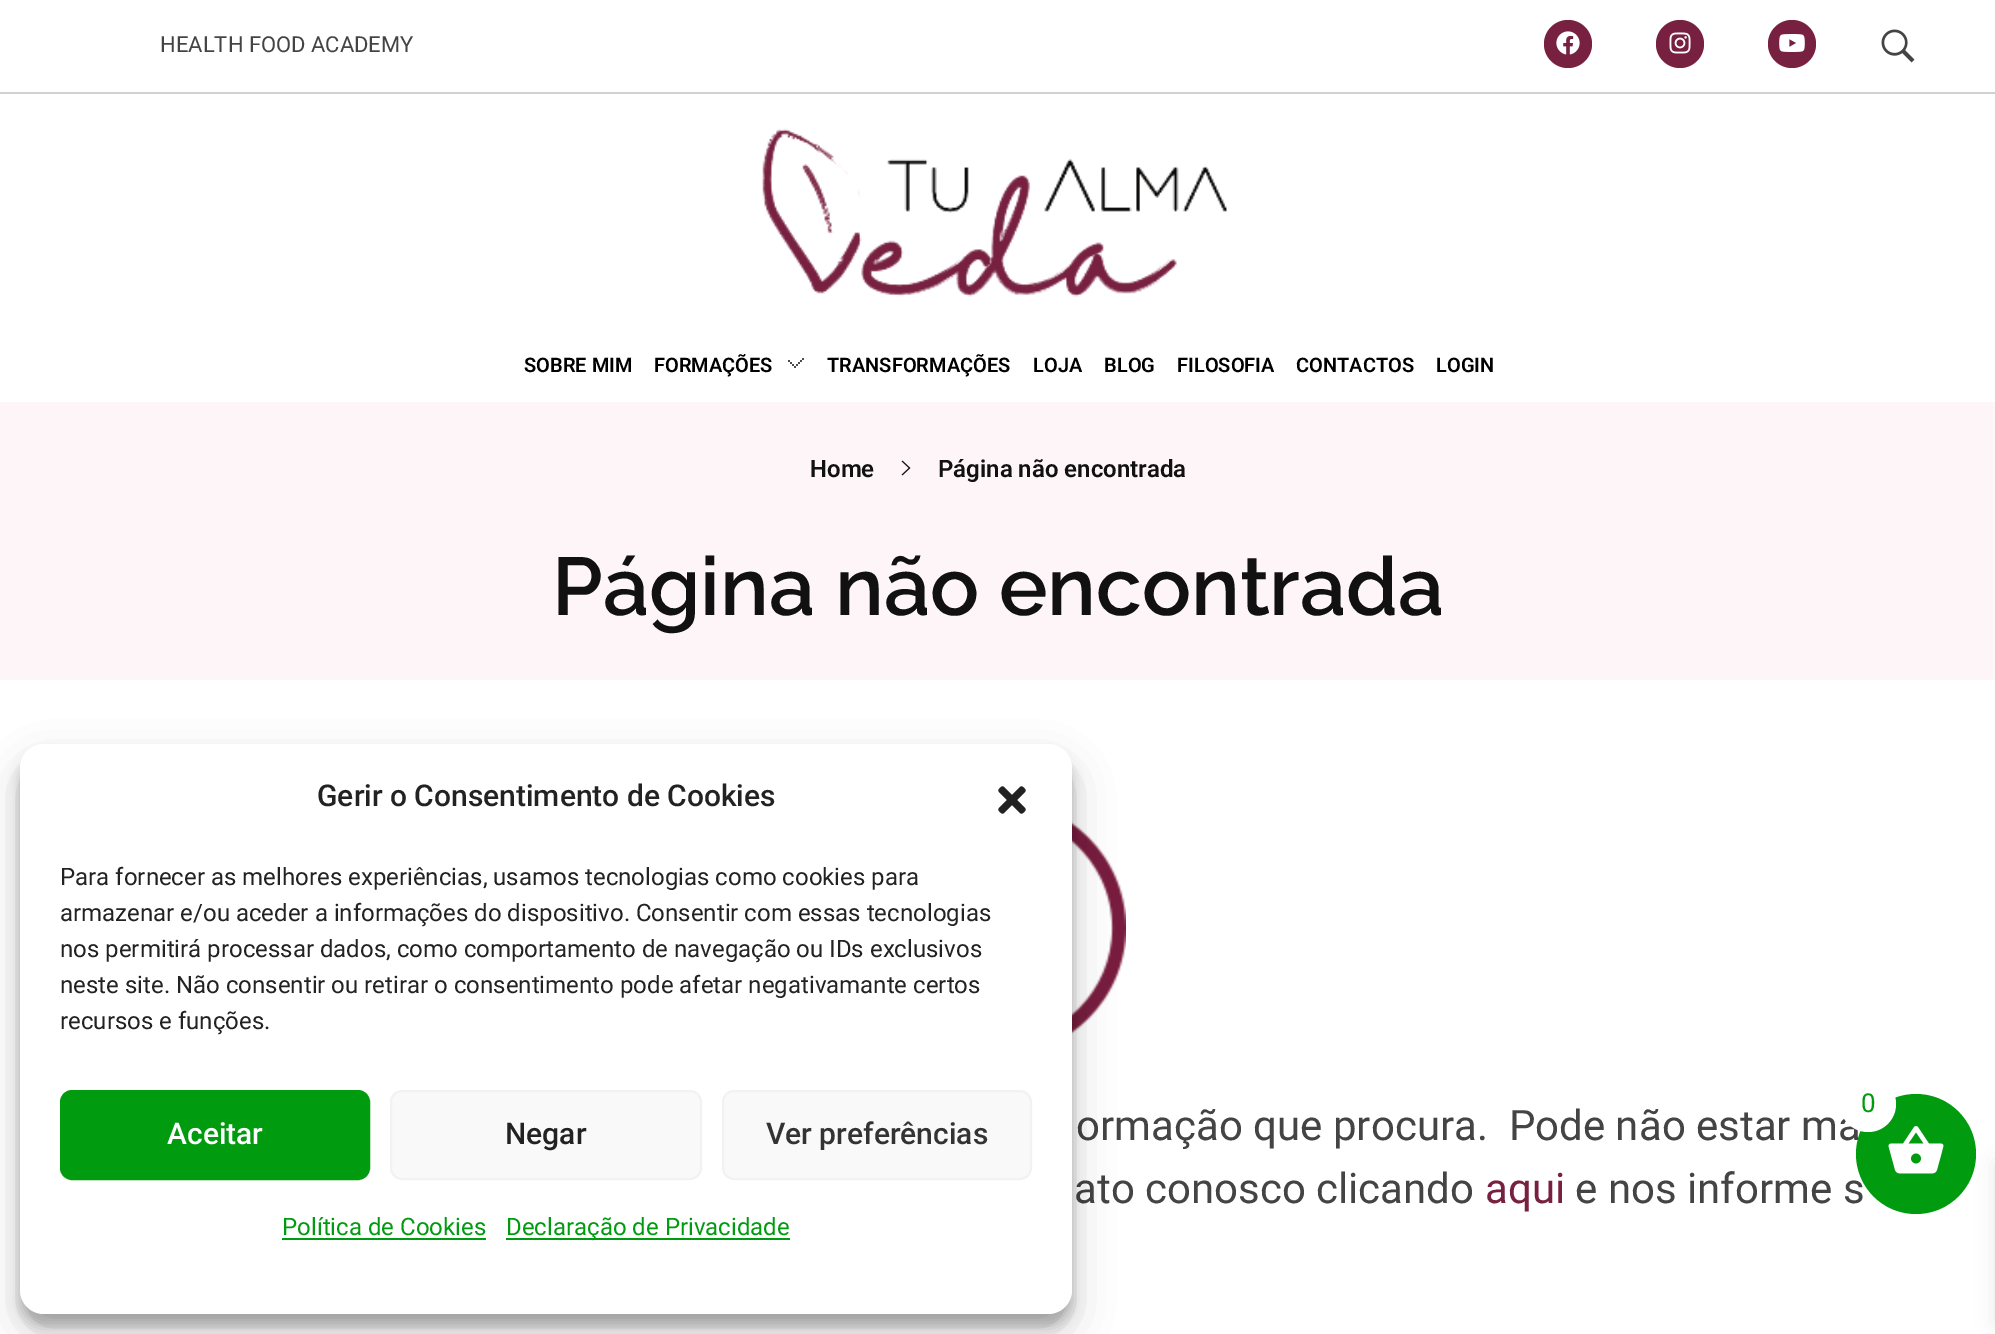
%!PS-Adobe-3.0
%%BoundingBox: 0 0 1995 1334
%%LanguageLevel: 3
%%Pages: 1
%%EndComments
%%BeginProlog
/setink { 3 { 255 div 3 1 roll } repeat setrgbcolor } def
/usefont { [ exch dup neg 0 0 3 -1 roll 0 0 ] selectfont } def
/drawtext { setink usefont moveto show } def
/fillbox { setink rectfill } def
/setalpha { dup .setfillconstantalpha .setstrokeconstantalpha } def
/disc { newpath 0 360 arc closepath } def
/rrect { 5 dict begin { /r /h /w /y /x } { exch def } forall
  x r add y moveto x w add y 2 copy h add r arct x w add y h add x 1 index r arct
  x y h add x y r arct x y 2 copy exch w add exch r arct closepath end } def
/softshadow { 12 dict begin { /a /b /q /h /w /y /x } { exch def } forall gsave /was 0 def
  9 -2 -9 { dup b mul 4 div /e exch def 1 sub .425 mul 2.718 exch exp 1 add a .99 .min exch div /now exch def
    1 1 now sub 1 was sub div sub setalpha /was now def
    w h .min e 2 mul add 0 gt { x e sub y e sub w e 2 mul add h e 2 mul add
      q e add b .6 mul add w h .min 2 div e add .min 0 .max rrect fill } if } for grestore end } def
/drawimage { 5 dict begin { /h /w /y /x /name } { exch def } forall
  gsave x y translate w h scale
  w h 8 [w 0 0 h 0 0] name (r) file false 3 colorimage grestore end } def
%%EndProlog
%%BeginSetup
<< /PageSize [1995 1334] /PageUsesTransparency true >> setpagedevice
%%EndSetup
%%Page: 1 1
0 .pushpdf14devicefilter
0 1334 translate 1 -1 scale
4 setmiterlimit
0 0 1995 1334 255 255 255 fillbox
0 92 1995 2 209 209 209 fillbox
(HEALTH FOOD ACADEMY) 160 52 /Roboto-Regular 22 68 68 68 drawtext
119 32 64 setink
1568 44 24 disc fill
(assets/img1.rgb) 1556 31 24 24 drawimage
1680 44 24 disc fill
(assets/img2.rgb) 1669 32 22 22 drawimage
1792 44 24 disc fill
(assets/img3.rgb) 1779 34 26 18 drawimage
(assets/img4.rgb) 1881 29 34 34 drawimage
(assets/img5.rgb) 761 128 467 169 drawimage
(SOBRE MIM) 524 372 /Roboto-SemiBold 20 0 0 0 drawtext
(FORMAÇÕES) 654 372 /Roboto-SemiBold 20 0 0 0 drawtext
(assets/img6.rgb) 788 358 16 10 drawimage
(TRANSFORMAÇÕES) 827 372 /Roboto-SemiBold 20 0 0 0 drawtext
(LOJA) 1033 372 /Roboto-SemiBold 20 0 0 0 drawtext
(BLOG) 1104 372 /Roboto-SemiBold 20 0 0 0 drawtext
(FILOSOFIA) 1177 372 /Roboto-SemiBold 20 0 0 0 drawtext
(CONTACTOS) 1296 372 /Roboto-SemiBold 20 0 0 0 drawtext
(LOGIN) 1436 372 /Roboto-SemiBold 20 0 0 0 drawtext
0 402 1995 278 254 245 248 fillbox
(Home) 810 477 /Roboto-SemiBold 24 17 17 17 drawtext
(assets/img7.rgb) 901 460 10 16 drawimage
(Página não encontrada) 938 477 /Roboto-SemiBold 24 17 17 17 drawtext
(Página não encontrada) 552 615 /Raleway-SemiBold 81.6 17 17 17 drawtext
(assets/img8.rgb) 1072 821 54 214 drawimage
(ormação que procura.  Pode não estar ma) 1076 1140 /Roboto-Regular 42 68 68 68 drawtext
(ato conosco clicando) 1074 1203 /Roboto-Regular 42 68 68 68 drawtext
(aqui) 1485 1203 /Roboto-Regular 42 119 32 64 drawtext
(e nos informe s) 1575 1203 /Roboto-Regular 42 68 68 68 drawtext
0 0 0 setink
20 756 1052 570 24 6 0.23 softshadow
20 764 1052 570 24 20 0.19 softshadow
255 255 255 setink
20 744 1052 570 24 rrect fill
(Gerir o Consentimento de Cookies) 317 806 /Roboto-Medium 30 34 34 34 drawtext
(assets/img9.rgb) 998 786 28 28 drawimage
(Para fornecer as melhores experiências, usamos tecnologias como cookies para) 60 885 /Roboto-Regular 24 34 34 34 drawtext
(armazenar e/ou aceder a informações do dispositivo. Consentir com essas tecnologias) 60 921 /Roboto-Regular 24 34 34 34 drawtext
(nos permitirá processar dados, como comportamento de navegação ou IDs exclusivos) 60 957 /Roboto-Regular 24 34 34 34 drawtext
(neste site. Não consentir ou retirar o consentimento pode afetar negativamante certos) 60 993 /Roboto-Regular 24 34 34 34 drawtext
(recursos e funções.) 60 1029 /Roboto-Regular 24 34 34 34 drawtext
0 155 15 setink
61 1091 308 88 11 rrect gsave fill grestore
2 setlinewidth
stroke
(Aceitar) 167 1144 /Roboto-Medium 30 255 255 255 drawtext
249 249 249 setink
391 1091 310 88 11 rrect gsave fill grestore
242 242 242 setink
stroke
(Negar) 505 1144 /Roboto-Medium 30 34 34 34 drawtext
249 249 249 setink
723 1091 308 88 11 rrect gsave fill grestore
242 242 242 setink
stroke
(Ver preferências) 766 1144 /Roboto-Medium 30 51 51 51 drawtext
(Política de Cookies) 282 1235 /Roboto-Regular 24 0 155 15 drawtext
282 1238 204 2 0 155 15 fillbox
506 1238 284 2 0 155 15 fillbox
(Declaração de Privacidade) 506 1235 /Roboto-Regular 24 0 155 15 drawtext
0 0 0 setink
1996 1162 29 162 0 10 0.1 softshadow
0 155 15 setink
1916 1154 60 disc fill
255 255 255 setink
1868 1104 28 disc fill
(0) 1861 1112 /Roboto-Regular 26 0 155 15 drawtext
(assets/img10.rgb) 1888 1126 56 48 drawimage
.poppdf14devicefilter showpage
%%EOF
